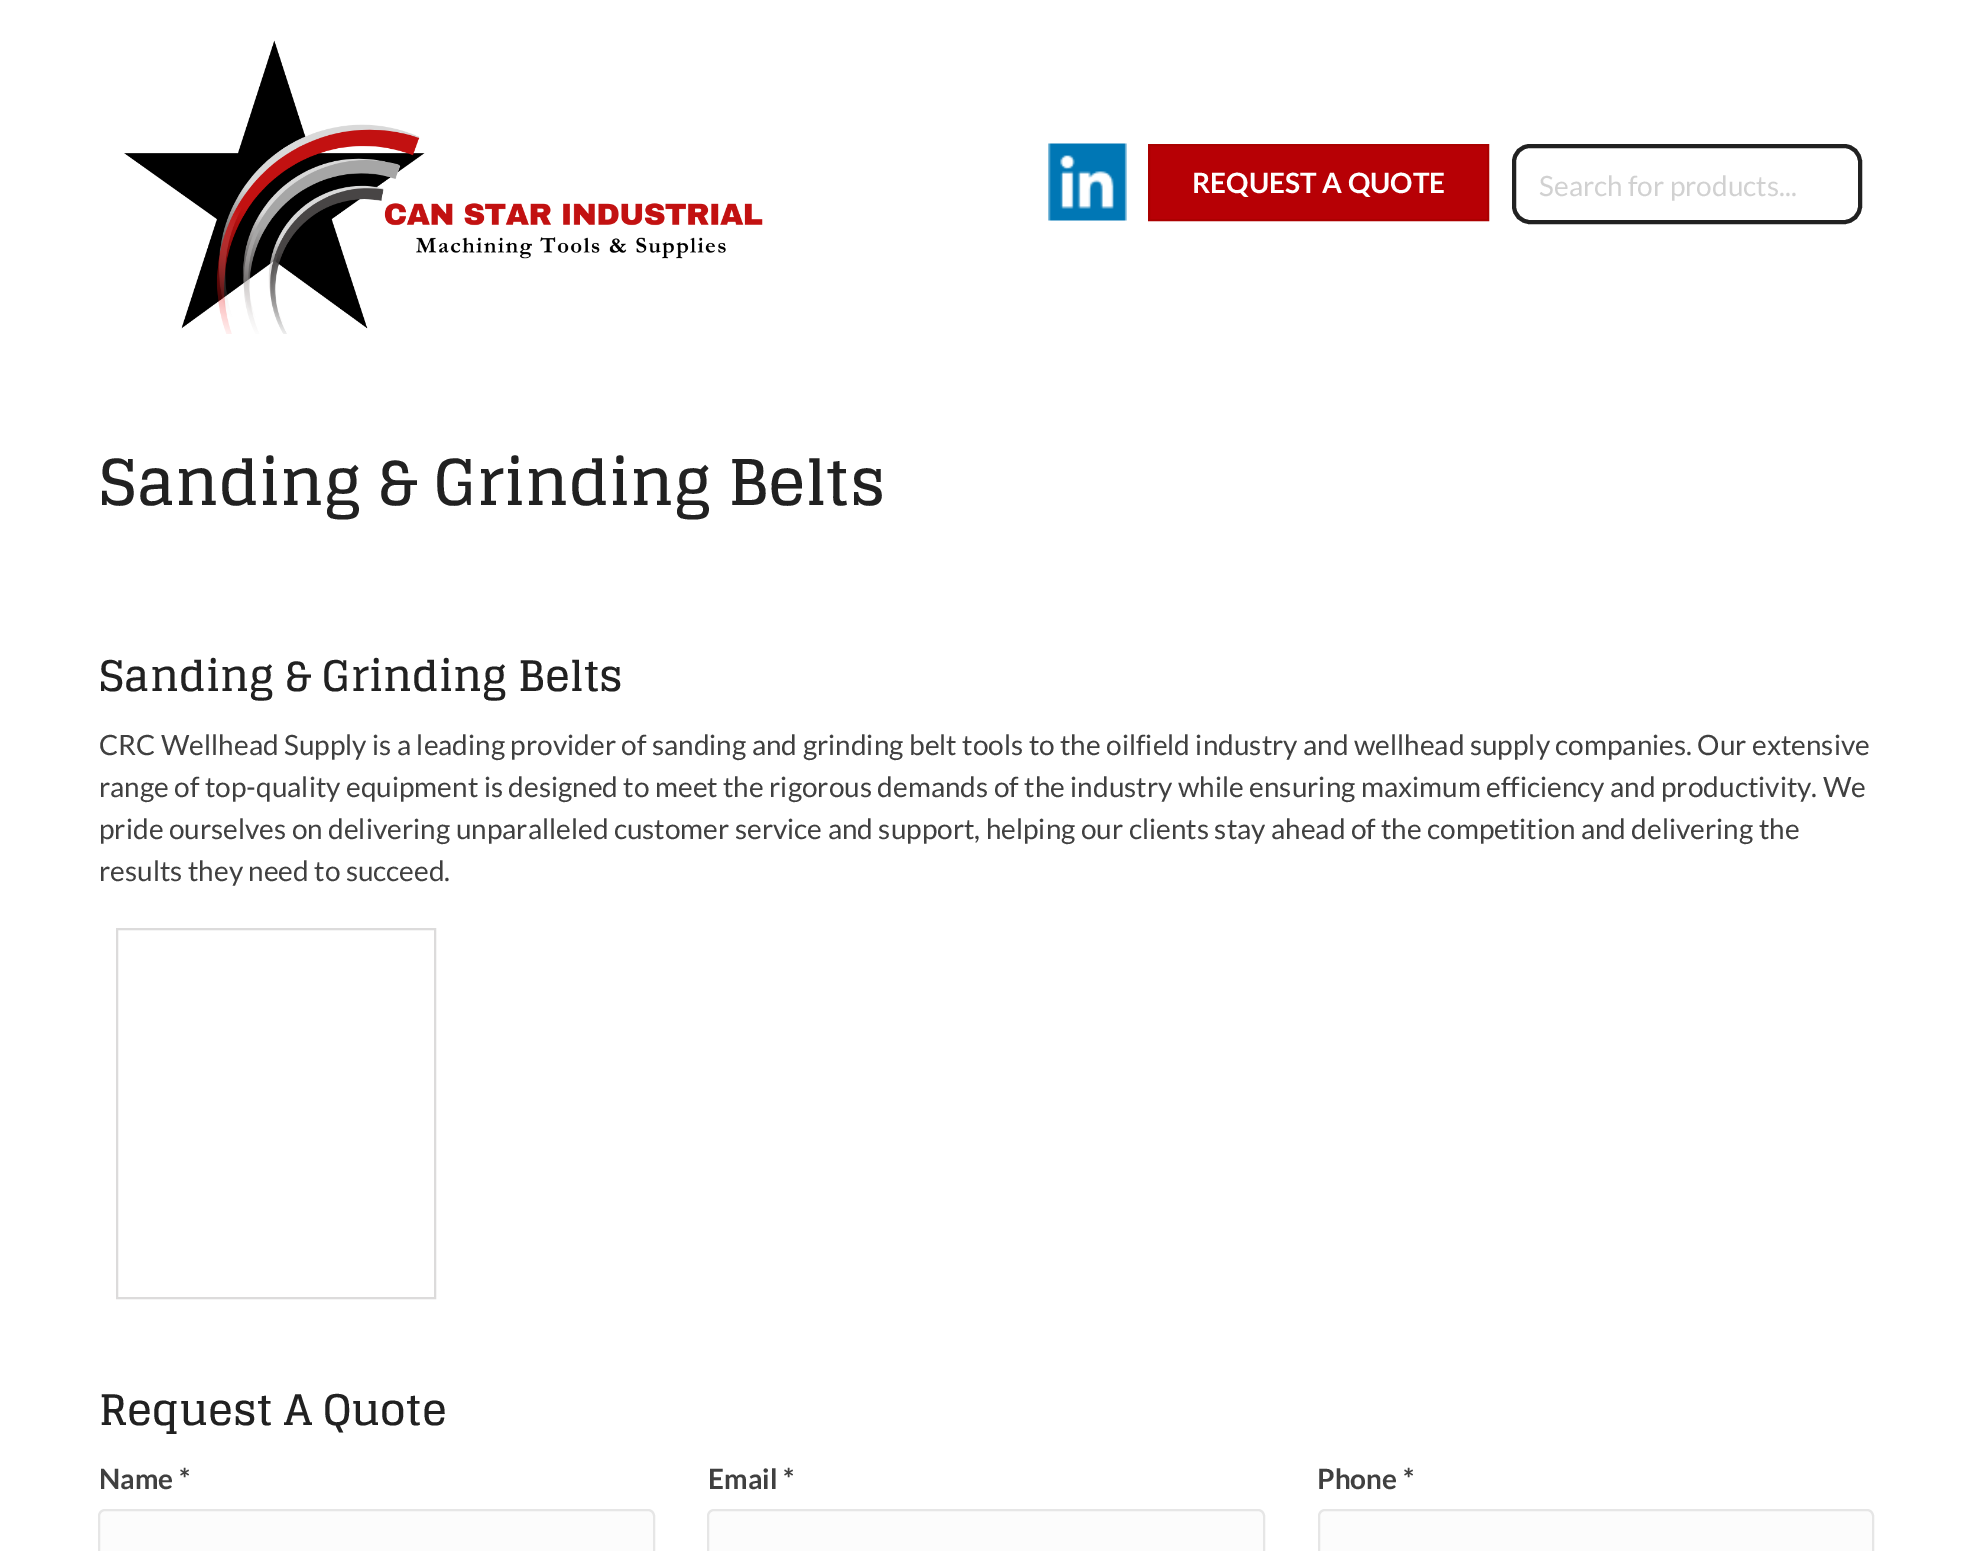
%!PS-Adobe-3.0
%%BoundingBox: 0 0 1971 1551
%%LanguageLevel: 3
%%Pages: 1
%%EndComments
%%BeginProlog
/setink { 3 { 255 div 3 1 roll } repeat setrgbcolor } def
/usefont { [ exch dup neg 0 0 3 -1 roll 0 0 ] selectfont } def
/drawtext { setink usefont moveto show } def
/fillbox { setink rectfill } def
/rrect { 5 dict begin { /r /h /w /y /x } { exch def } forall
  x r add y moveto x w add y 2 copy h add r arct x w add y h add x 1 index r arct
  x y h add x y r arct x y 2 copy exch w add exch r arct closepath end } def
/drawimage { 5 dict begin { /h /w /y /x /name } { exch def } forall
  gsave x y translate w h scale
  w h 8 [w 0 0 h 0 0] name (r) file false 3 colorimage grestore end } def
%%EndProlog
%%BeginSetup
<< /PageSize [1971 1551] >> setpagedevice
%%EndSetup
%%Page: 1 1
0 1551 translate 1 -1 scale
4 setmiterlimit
0 0 1971 1551 255 255 255 fillbox
(assets/img1.rgb) 124 40 639 294 drawimage
(assets/img2.rgb) 1048 143 79 78 drawimage
183 0 5 setink
1149 145 moveto 1488 145 lineto 1488 220 lineto 1149 220 lineto closepath gsave fill grestore
171 0 0 setink
2 setlinewidth
stroke
(REQUEST A QUOTE) 1192 193 /Lato-Bold 28 255 255 255 drawtext
33 33 33 setink
4 setlinewidth
1514 146 346 76 16 rrect stroke
(Search for products...) 1539 196 /Lato-Regular 28 209 209 209 drawtext
(Sanding & Grinding Belts) 99 505 /Glegoo-Bold 63 33 33 33 drawtext
(Sanding & Grinding Belts) 99 691 /Glegoo-Bold 42 33 33 33 drawtext
(CRC Wellhead Supply is a leading provider of sanding and grinding belt tools to the oilfield industry and wellhead supply companies. Our extensive) 99 755 /Lato-Regular 28 64 64 64 drawtext
(range of top-quality equipment is designed to meet the rigorous demands of the industry while ensuring maximum efficiency and productivity. We) 99 797 /Lato-Regular 28 64 64 64 drawtext
(pride ourselves on delivering unparalleled customer service and support, helping our clients stay ahead of the competition and delivering the) 99 839 /Lato-Regular 28 64 64 64 drawtext
(results they need to succeed.) 99 881 /Lato-Regular 28 64 64 64 drawtext
220 219 219 setink
2 setlinewidth
117 929 318 369 rectstroke
(Request A Quote) 99 1425 /Glegoo-Bold 42 33 33 33 drawtext
(Name *) 99 1489 /Lato-Bold 28 64 64 64 drawtext
252 252 252 setink
99 1510 555 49 6 rrect gsave fill grestore
230 230 230 setink
stroke
(Email *) 708 1489 /Lato-Bold 28 64 64 64 drawtext
252 252 252 setink
708 1510 556 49 6 rrect gsave fill grestore
230 230 230 setink
stroke
(Phone *) 1317 1489 /Lato-Bold 28 64 64 64 drawtext
252 252 252 setink
1319 1510 554 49 6 rrect gsave fill grestore
230 230 230 setink
stroke
showpage
%%EOF
